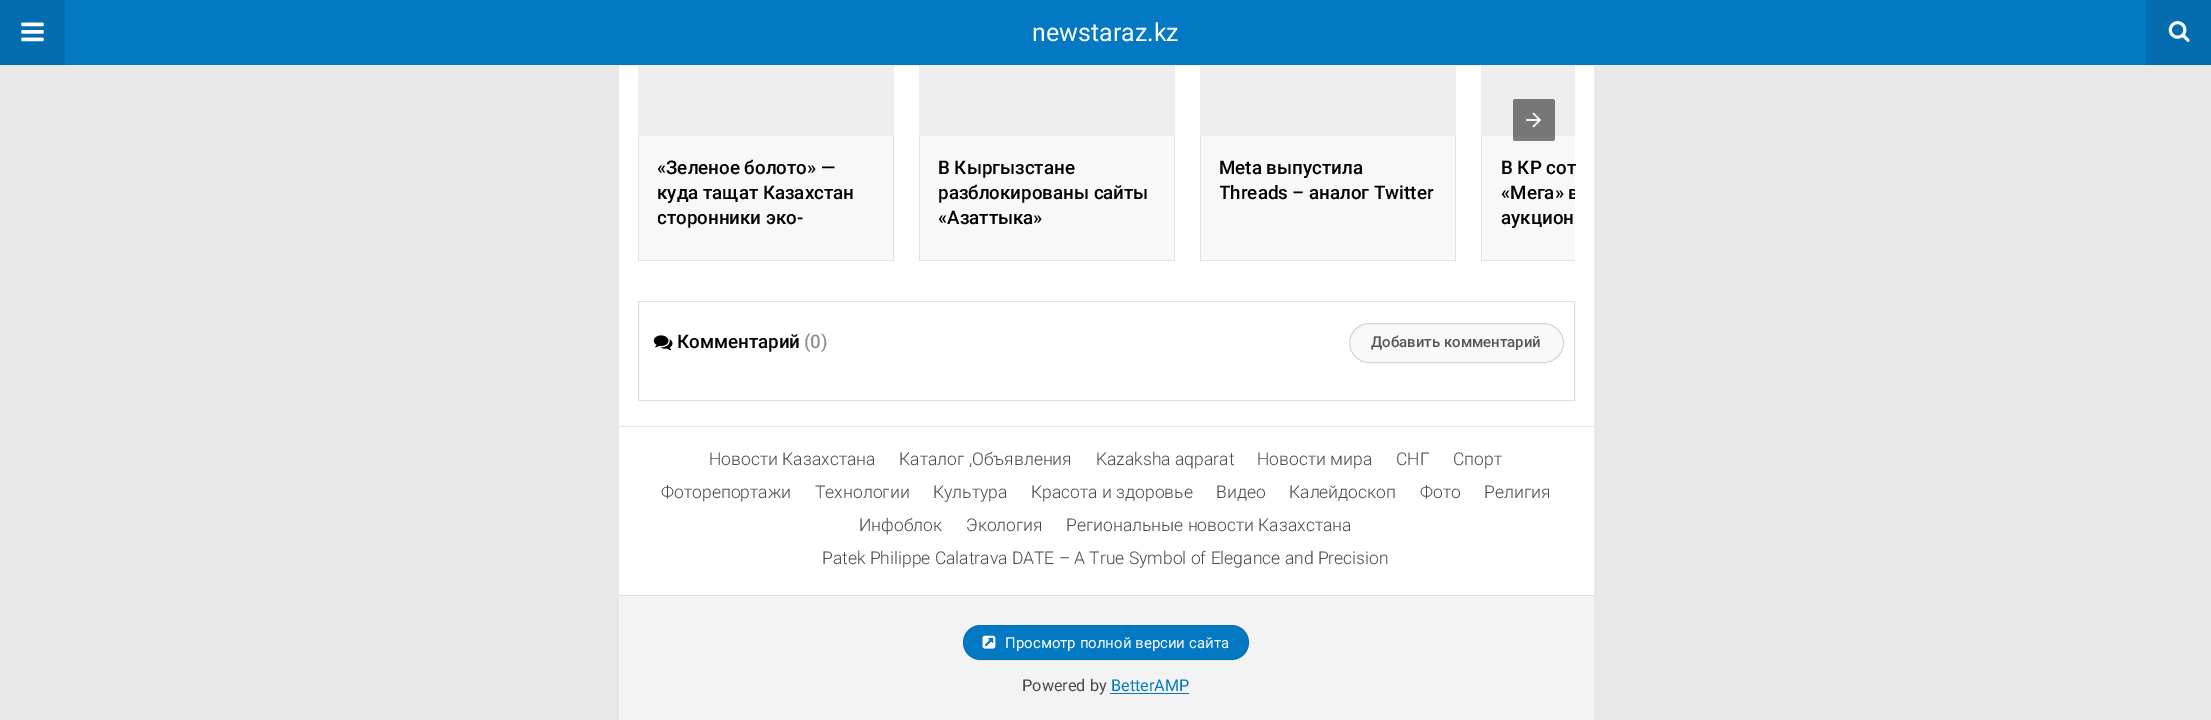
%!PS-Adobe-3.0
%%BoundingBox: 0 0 2211 720
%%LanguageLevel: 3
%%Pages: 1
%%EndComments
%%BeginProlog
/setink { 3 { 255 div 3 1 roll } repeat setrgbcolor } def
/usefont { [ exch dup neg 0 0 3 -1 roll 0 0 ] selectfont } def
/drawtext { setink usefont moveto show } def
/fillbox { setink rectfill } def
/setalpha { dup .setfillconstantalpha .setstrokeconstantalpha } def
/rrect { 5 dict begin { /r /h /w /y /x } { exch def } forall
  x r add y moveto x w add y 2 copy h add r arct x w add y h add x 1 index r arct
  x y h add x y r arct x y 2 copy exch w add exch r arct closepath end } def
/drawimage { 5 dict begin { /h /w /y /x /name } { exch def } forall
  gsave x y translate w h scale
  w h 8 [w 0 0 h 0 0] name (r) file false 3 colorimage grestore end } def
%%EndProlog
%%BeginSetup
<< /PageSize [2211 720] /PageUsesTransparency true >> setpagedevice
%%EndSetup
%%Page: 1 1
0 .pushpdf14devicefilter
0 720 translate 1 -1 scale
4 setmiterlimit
0 0 2211 720 232 232 232 fillbox
619 65 975 361 255 255 255 fillbox
65 0 2081 65 3 121 196 fillbox
0 0 65 65 3 109 176 fillbox
(assets/img1.rgb) 21 22 23 20 drawimage
(newstaraz.kz) 1032 41 /Roboto-Regular 25 255 255 255 drawtext
2146 0 65 65 3 109 176 fillbox
(assets/img2.rgb) 2168 21 22 21 drawimage
1481 65 94 71 238 238 238 fillbox
1483 136 92 124 248 248 248 fillbox
0.5 setalpha
0 0 0 setink
1513 99 42 42 2.5 rrect fill
1 setalpha
(assets/img3.rgb) 1526 112 16 16 drawimage
638 65 256 71 238 238 238 fillbox
639 136 254 124 248 248 248 fillbox
893 136 1 125 226 226 226 fillbox
638 260 256 1 226 226 226 fillbox
638 136 1 125 226 226 226 fillbox
(«Зеленое болото» —) 657 174 /Roboto-Medium 18.75 0 0 0 drawtext
(куда тащат Казахстан) 657 199 /Roboto-Medium 18.75 0 0 0 drawtext
gsave
658 155 216 80 rectclip
(сторонники эко-) 657 224 /Roboto-Medium 18.75 0 0 0 drawtext
grestore
919 65 256 71 238 238 238 fillbox
920 136 254 124 248 248 248 fillbox
1174 136 1 125 226 226 226 fillbox
919 260 256 1 226 226 226 fillbox
919 136 1 125 226 226 226 fillbox
(В Кыргызстане) 938 174 /Roboto-Medium 18.75 0 0 0 drawtext
(разблокированы сайты) 938 199 /Roboto-Medium 18.75 0 0 0 drawtext
(«Азаттыка») 938 224 /Roboto-Medium 18.75 0 0 0 drawtext
1200 65 256 71 238 238 238 fillbox
1201 136 254 124 248 248 248 fillbox
1455 136 1 125 226 226 226 fillbox
1200 260 256 1 226 226 226 fillbox
1200 136 1 125 226 226 226 fillbox
(Meta выпустила) 1219 174 /Roboto-Medium 18.75 0 0 0 drawtext
gsave
1220 155 216 80 rectclip
(Threads – аналог Twitter) 1219 199 /Roboto-Medium 18.75 0 0 0 drawtext
grestore
1481 260 94 1 226 226 226 fillbox
1481 136 1 125 226 226 226 fillbox
(В КР сот) 1501 174 /Roboto-Medium 18.75 0 0 0 drawtext
gsave
1501 155 74 80 rectclip
(«Мега» в) 1501 199 /Roboto-Medium 18.75 0 0 0 drawtext
grestore
(аукцион) 1501 224 /Roboto-Medium 18.75 0 0 0 drawtext
226 226 226 setink
638.5 301.5 936 99 rectstroke
(assets/img4.rgb) 653 335 20 16 drawimage
(Комментарий) 677 348 /Roboto-Medium 18.75 0 0 0 drawtext
(\(0\)) 804 348 /Roboto-Medium 18.75 146 146 146 drawtext
250 249 249 setink
1349.5 323.5 214 39 19.5 rrect gsave fill grestore
215 215 215 setink
stroke
(Добавить комментарий) 1371 347 /Roboto-Medium 15 85 85 85 drawtext
619 596 975 124 243 243 243 fillbox
619 427 975 168 255 255 255 fillbox
(Новости Казахстана) 709 465 /Roboto-Light 17.5 73 73 73 drawtext
(Каталог ,Объявления) 899 465 /Roboto-Light 17.5 73 73 73 drawtext
(Kazaksha aqparat) 1096 465 /Roboto-Light 17.5 73 73 73 drawtext
(Новости мира) 1257 465 /Roboto-Light 17.5 73 73 73 drawtext
(СНГ) 1396 465 /Roboto-Light 17.5 73 73 73 drawtext
(Спорт) 1453 465 /Roboto-Light 17.5 73 73 73 drawtext
(Фоторепортажи) 661 498 /Roboto-Light 17.5 73 73 73 drawtext
(Технологии) 815 498 /Roboto-Light 17.5 73 73 73 drawtext
(Культура) 933 498 /Roboto-Light 17.5 73 73 73 drawtext
(Красота и здоровье) 1031 498 /Roboto-Light 17.5 73 73 73 drawtext
(Видео) 1216 498 /Roboto-Light 17.5 73 73 73 drawtext
(Калейдоскоп) 1289 498 /Roboto-Light 17.5 73 73 73 drawtext
(Фото) 1420 498 /Roboto-Light 17.5 73 73 73 drawtext
(Религия) 1484 498 /Roboto-Light 17.5 73 73 73 drawtext
(Инфоблок) 859 531 /Roboto-Light 17.5 73 73 73 drawtext
(Экология) 966 531 /Roboto-Light 17.5 73 73 73 drawtext
(Региональные новости Казахстана) 1066 531 /Roboto-Light 17.5 73 73 73 drawtext
(Patek Philippe Calatrava DATE – A True Symbol of Elegance and Precision) 822 564 /Roboto-Light 17.5 73 73 73 drawtext
619 595 975 1 219 219 219 fillbox
3 121 196 setink
963 625 286 35 17.5 rrect fill
0.08 setalpha
0 0 0 setink
963.5 625.5 285 34 17 rrect stroke
1 setalpha
(assets/img5.rgb) 982 635 14 14 drawimage
(Просмотр полной версии сайта) 1005 648 /Roboto-Regular 15 255 255 255 drawtext
(Powered by) 1022 691 /Roboto-Regular 16.25 73 73 73 drawtext
(BetterAMP) 1111 691 /Roboto-Regular 16.25 3 121 196 drawtext
1110 693 79 1 3 121 196 fillbox
.poppdf14devicefilter showpage
%%EOF
